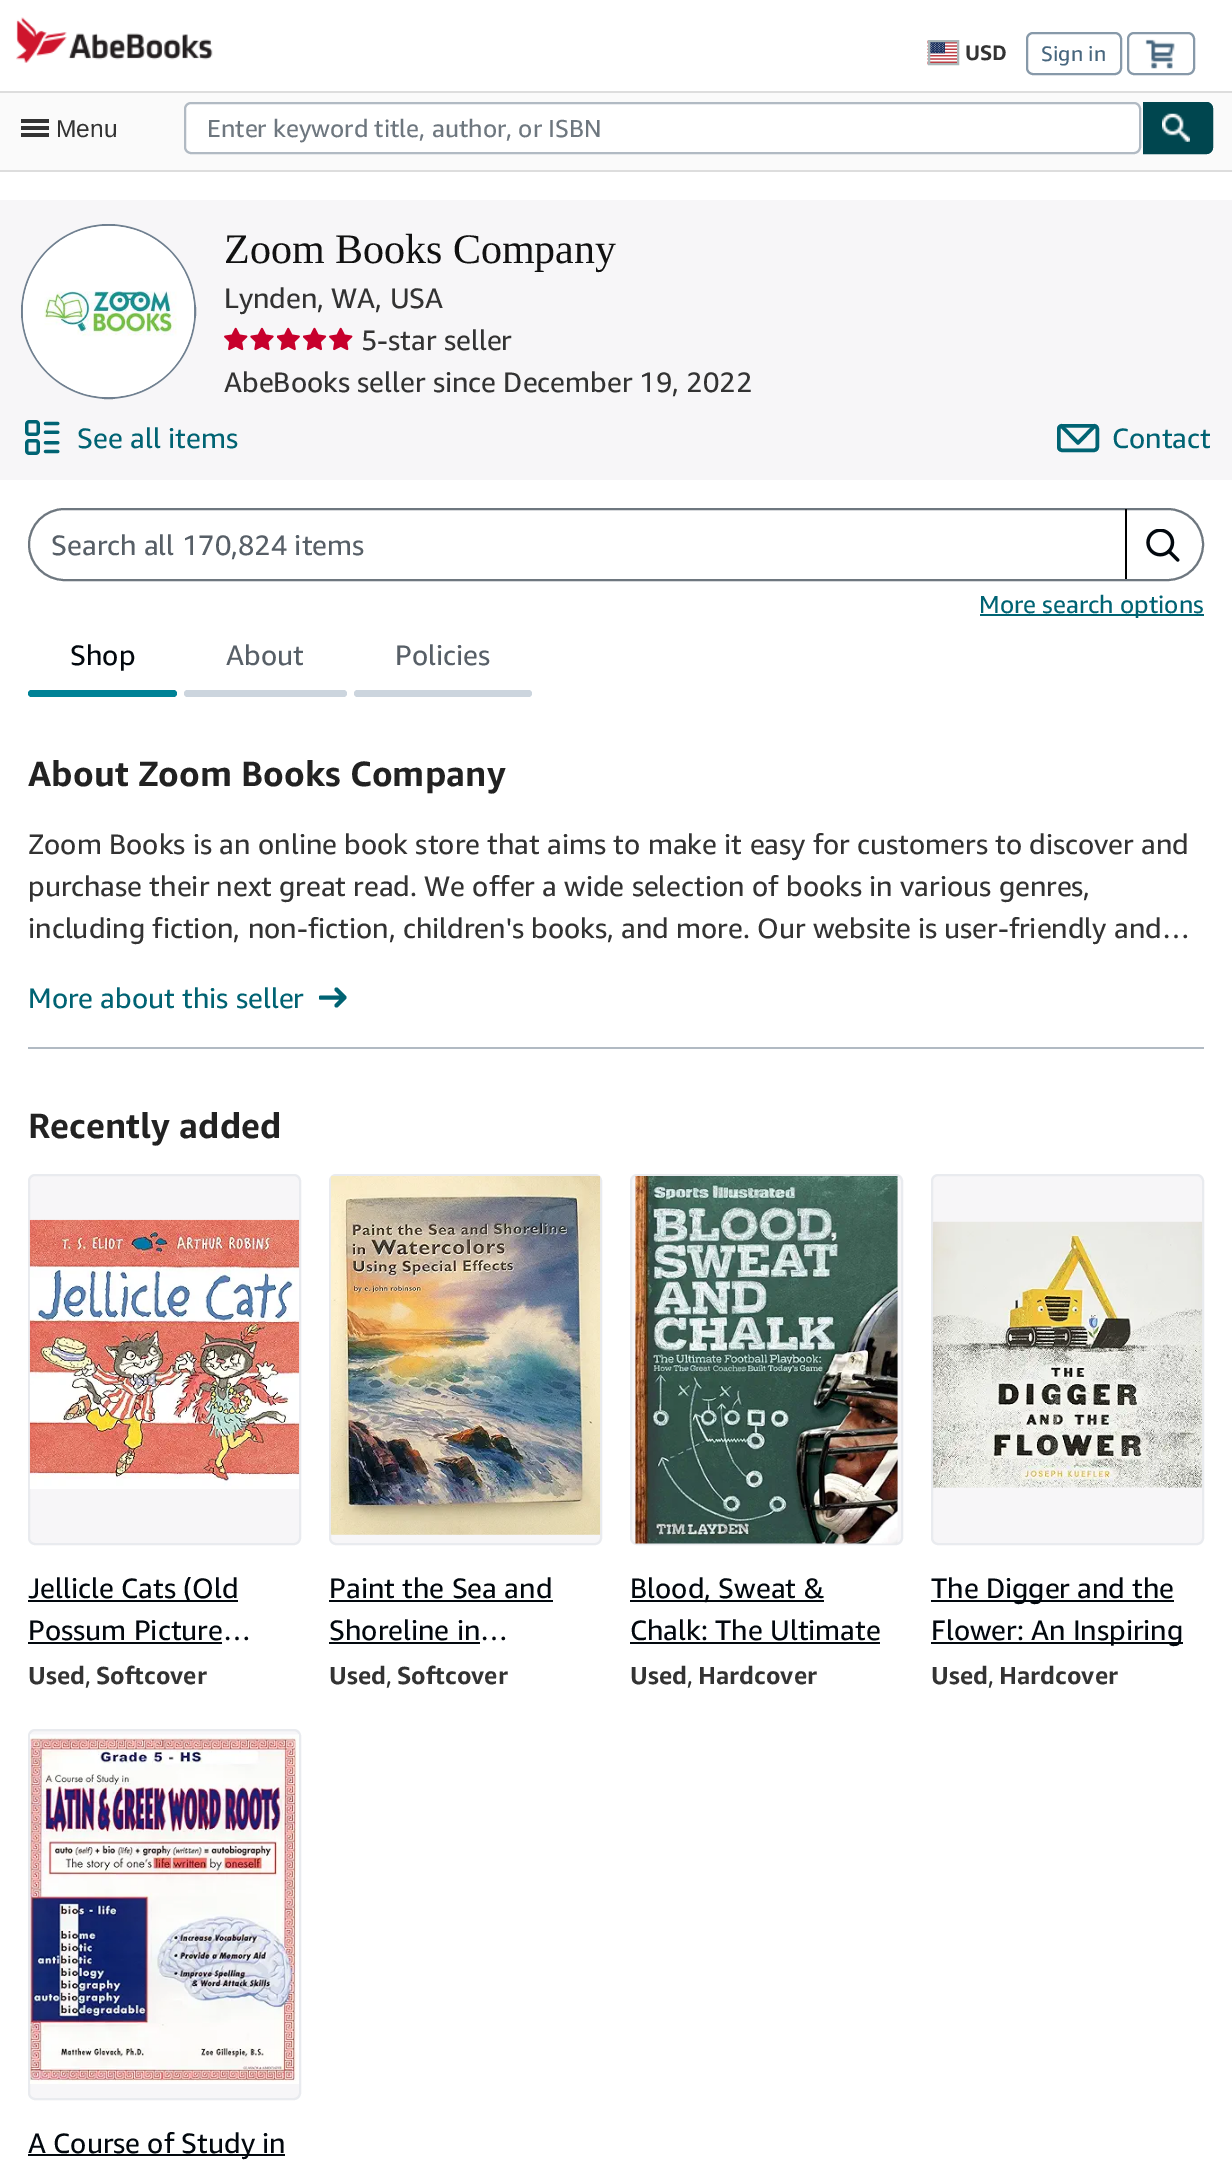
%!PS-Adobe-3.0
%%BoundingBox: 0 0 1232 2173
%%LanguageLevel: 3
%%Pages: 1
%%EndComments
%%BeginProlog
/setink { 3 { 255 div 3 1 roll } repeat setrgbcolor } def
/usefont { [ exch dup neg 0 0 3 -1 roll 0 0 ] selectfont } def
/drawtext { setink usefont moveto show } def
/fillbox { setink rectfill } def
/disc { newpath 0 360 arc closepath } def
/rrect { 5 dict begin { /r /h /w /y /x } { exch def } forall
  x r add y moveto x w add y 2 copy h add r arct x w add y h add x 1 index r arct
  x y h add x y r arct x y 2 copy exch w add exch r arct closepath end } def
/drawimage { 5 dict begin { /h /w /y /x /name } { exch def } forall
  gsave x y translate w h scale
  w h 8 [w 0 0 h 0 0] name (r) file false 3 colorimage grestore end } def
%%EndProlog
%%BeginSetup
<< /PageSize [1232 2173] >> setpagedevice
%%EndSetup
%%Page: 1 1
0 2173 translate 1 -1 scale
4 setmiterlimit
0 0 1232 2173 255 255 255 fillbox
(assets/img1.rgb) 16 17 197 46 drawimage
(assets/img2.rgb) 927 40 30 25 drawimage
170 183 184 setink
2 setlinewidth
929 41 29 23 rectstroke
(USD) 965 60 /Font-Bold 21 51 51 51 drawtext
135 153 169 setink
1027 33 94 41 6 rrect stroke
(Sign in) 1041 61 /Font-Regular 21 71 102 126 drawtext
135 153 169 setink
1128 33 66 41 6 rrect stroke
(assets/img3.rgb) 1145 39 30 30 drawimage
0 93 1232 77 250 250 250 fillbox
0 91 1232 2 221 221 221 fillbox
0 170 1232 2 221 221 221 fillbox
21 119 28 4 51 51 51 fillbox
(Menu) 56 137 /LiberationSans-Regular 24.5 51 51 51 drawtext
21 126 28 4 51 51 51 fillbox
21 133 28 4 51 51 51 fillbox
255 255 255 setink
185 103 955 50 6 rrect gsave fill grestore
177 186 195 setink
stroke
(Enter keyword title, author, or ISBN) 207 137 /Font-Regular 24.5 110 119 127 drawtext
0 70 79 setink
1143 102 moveto 1206 102 lineto 1210 102 1213 105 1213 109 curveto 1213 147 lineto 1213 151 1210 154 1206 154 curveto 1143 154 lineto closepath fill
(assets/img4.rgb) 1162 113 28 29 drawimage
1144 103 moveto 1206 103 lineto 1209.5 103 1212 105.5 1212 109 curveto 1212 147 lineto 1212 150.5 1209.5 153 1206 153 curveto 1144 153 lineto closepath stroke
0 200 1232 280 247 246 248 fillbox
112 128 144 setink
108.5 311.5 86.5 disc stroke
(assets/img5.rgb) 22 225 173 173 drawimage
(Zoom Books Company) 224 263 /LiberationSerif-Regular 42 17 17 17 drawtext
(Lynden, WA, USA) 224 308 /Font-Regular 28 51 51 51 drawtext
(assets/img6.rgb) 224 327 24 24 drawimage
(assets/img7.rgb) 250 327 24 24 drawimage
(assets/img8.rgb) 277 327 23 24 drawimage
(assets/img9.rgb) 303 327 24 24 drawimage
(assets/img6.rgb) 329 327 24 24 drawimage
(5-star seller) 361 350 /Font-Regular 28 51 51 51 drawtext
(AbeBooks seller since December 19, 2022) 224 392 /Font-Regular 28 51 51 51 drawtext
(assets/img10.rgb) 25 420 35 35 drawimage
(See all items) 77 448 /Font-Regular 28 0 99 115 drawtext
3.5 setlinewidth
1058.75 425.75 38.5 24.5 3.25 rrect stroke
1 setlinejoin
1060.5 425 moveto 1078 443 lineto 1095.5 425 lineto stroke
(Contact) 1112 448 /Font-Regular 28 0 99 115 drawtext
110 119 127 setink
2 setlinewidth
0 setlinejoin
29 509 1174 71 35.5 rrect stroke
(Search all 170,824 items) 51 555 /Font-Regular 28 87 95 103 drawtext
1125 509 2 70 0 0 0 fillbox
(assets/img11.rgb) 1146 529 34 33 drawimage
980 614 224 2 0 99 115 fillbox
(More search options) 979 613 /Font-Regular 24.5 0 99 115 drawtext
(Shop) 70 665 /Font-Regular 28 2 8 14 drawtext
0 130 150 setink
28 690 149 7 3.5 rrect fill
(About) 226 665 /Font-Regular 28 87 95 103 drawtext
204 213 222 setink
184 690 163 7 3.5 rrect fill
(Policies) 395 665 /Font-Regular 28 87 95 103 drawtext
204 213 222 setink
354 690 178 7 3.5 rrect fill
(About Zoom Books Company) 28 786 /Font-Bold 35 34 34 34 drawtext
(Zoom Books is an online book store that aims to make it easy for customers to discover and) 28 854 /Font-Regular 28 51 51 51 drawtext
(purchase their next great read. We offer a wide selection of books in various genres,) 28 896 /Font-Regular 28 51 51 51 drawtext
(including fiction, non-fiction, children's books, and more. Our website is user-friendly and…) 28 938 /Font-Regular 28 51 51 51 drawtext
(More about this seller) 28 1008 /Font-Regular 28 0 99 115 drawtext
gsave
319 984 28 28 rectclip
4 setlinewidth
1 setlinecap
1 setlinejoin
336.5 1005.5 moveto 344.5 997.5 lineto 336.5 989.5 lineto 344.5 997.5 moveto 320.5 997.5 lineto stroke
grestore
28 1047 1176 2 177 186 195 fillbox
(Recently added) 28 1138 /Font-Bold 35 34 34 34 drawtext
247 246 248 setink
29 1175 271 369 6 rrect gsave fill grestore
233 235 239 setink
stroke
(assets/img12.rgb) 29 1219 271 270 drawimage
28 1600 210 2 2 8 14 fillbox
(Jellicle Cats \(Old) 28 1598 /Font-Regular 28 2 8 14 drawtext
(Possum Picture…) 28 1640 /Font-Regular 28 2 8 14 drawtext
28 1642 194 2 2 8 14 fillbox
(Used) 28 1684 /Font-Bold 24.5 51 51 51 drawtext
(,) 85 1684 /Font-Regular 24.5 51 51 51 drawtext
(Softcover) 96 1684 /Font-Bold 24.5 51 51 51 drawtext
247 246 248 setink
330 1175 271 369 6 rrect gsave fill grestore
233 235 239 setink
stroke
(assets/img13.rgb) 330 1176 271 359 drawimage
(Paint the Sea and) 329 1598 /Font-Regular 28 2 8 14 drawtext
329 1600 224 2 2 8 14 fillbox
(Shoreline in…) 329 1640 /Font-Regular 28 2 8 14 drawtext
329 1642 151 2 2 8 14 fillbox
(Used) 329 1684 /Font-Bold 24.5 51 51 51 drawtext
(,) 386 1684 /Font-Regular 24.5 51 51 51 drawtext
(Softcover) 397 1684 /Font-Bold 24.5 51 51 51 drawtext
247 246 248 setink
631 1175 271 369 6 rrect gsave fill grestore
233 235 239 setink
stroke
(assets/img14.rgb) 635 1176 263 368 drawimage
630 1600 194 2 2 8 14 fillbox
(Blood, Sweat &) 630 1598 /Font-Regular 28 2 8 14 drawtext
(Chalk: The Ultimate) 630 1640 /Font-Regular 28 2 8 14 drawtext
630 1642 250 2 2 8 14 fillbox
(Used) 630 1684 /Font-Bold 24.5 51 51 51 drawtext
(,) 687 1684 /Font-Regular 24.5 51 51 51 drawtext
(Hardcover) 698 1684 /Font-Bold 24.5 51 51 51 drawtext
247 246 248 setink
932 1175 271 369 6 rrect gsave fill grestore
233 235 239 setink
stroke
(assets/img15.rgb) 932 1221 271 267 drawimage
931 1600 243 2 2 8 14 fillbox
(The Digger and the) 931 1598 /Font-Regular 28 2 8 14 drawtext
931 1642 252 2 2 8 14 fillbox
(Flower: An Inspiring) 931 1640 /Font-Regular 28 2 8 14 drawtext
(Used) 931 1684 /Font-Bold 24.5 51 51 51 drawtext
(,) 988 1684 /Font-Regular 24.5 51 51 51 drawtext
(Hardcover) 999 1684 /Font-Bold 24.5 51 51 51 drawtext
247 246 248 setink
29 1730 271 369 6 rrect gsave fill grestore
233 235 239 setink
stroke
(assets/img16.rgb) 30 1734 269 350 drawimage
28 2154 257 2 2 8 14 fillbox
(A Course of Study in) 28 2153 /Font-Regular 28 2 8 14 drawtext
showpage
%%EOF
